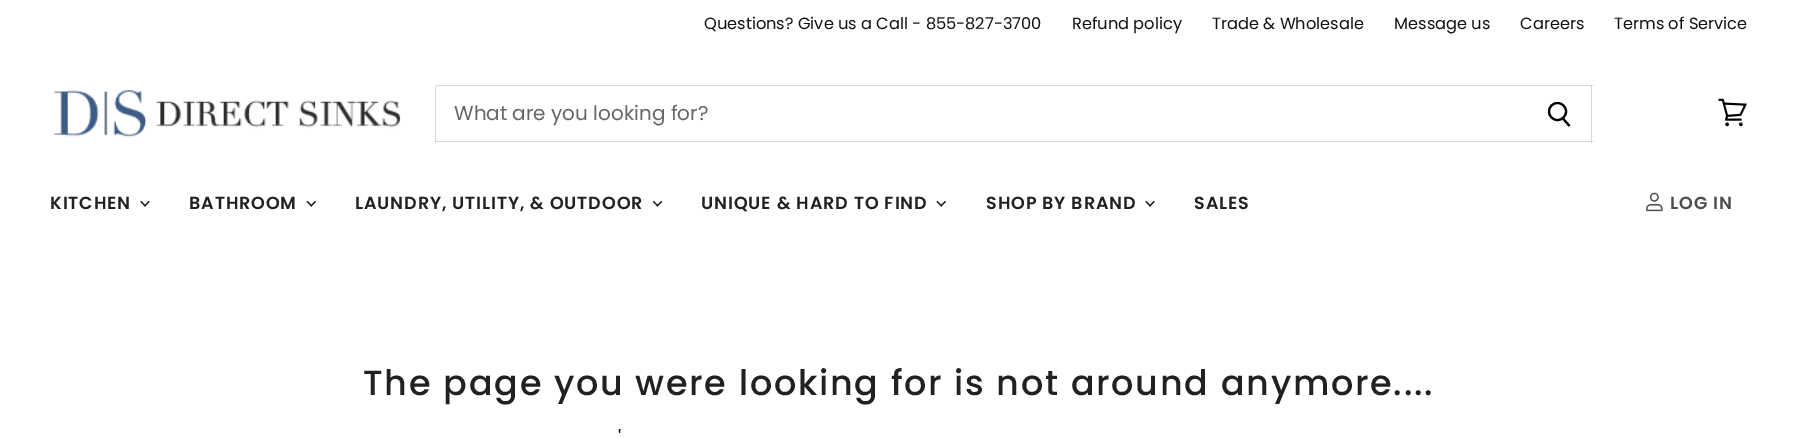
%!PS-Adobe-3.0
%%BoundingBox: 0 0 1797 438
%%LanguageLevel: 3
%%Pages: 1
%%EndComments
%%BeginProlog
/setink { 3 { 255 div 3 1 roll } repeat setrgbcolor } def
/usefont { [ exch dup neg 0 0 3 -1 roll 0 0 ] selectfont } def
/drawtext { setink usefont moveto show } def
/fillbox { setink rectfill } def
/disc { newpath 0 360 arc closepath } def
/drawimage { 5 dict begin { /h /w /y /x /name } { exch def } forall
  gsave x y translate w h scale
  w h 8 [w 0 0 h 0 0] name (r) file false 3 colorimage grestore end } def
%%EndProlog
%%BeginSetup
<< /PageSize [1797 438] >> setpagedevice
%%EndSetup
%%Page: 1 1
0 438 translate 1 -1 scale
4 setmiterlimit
0 0 1797 438 255 255 255 fillbox
(Questions? Give us a Call - 855-827-3700) 704 29 /Poppins-Regular 16.25 17 17 17 drawtext
(Refund policy) 1072 29 /Poppins-Regular 16.25 17 17 17 drawtext
(Trade & Wholesale) 1212 29 /Poppins-Regular 16.25 17 17 17 drawtext
(Message us) 1394 29 /Poppins-Regular 16.25 17 17 17 drawtext
(Careers) 1520 29 /Poppins-Regular 16.25 17 17 17 drawtext
(Terms of Service) 1614 29 /Poppins-Regular 16.25 17 17 17 drawtext
(assets/img1.rgb) 53 90 348 48 drawimage
436 85 1157 1 215 213 207 fillbox
1591 86 1 57 215 213 207 fillbox
436 141 1157 1 215 213 207 fillbox
0 0 0 setink
2.1 setlinewidth
1569.5 126 moveto 1562.5 118 lineto stroke
1557.5 111.5 8.5 disc stroke
435 86 1 57 215 213 207 fillbox
(What are you looking for?) 454 120 /Poppins-Regular 20 102 102 102 drawtext
(assets/img2.rgb) 1718 98 29 29 drawimage
/Poppins-SemiBold 17.5 usefont
33 33 33 setink
50 209 moveto 0.9 0 (KITCHEN) ashow
(assets/img3.rgb) 140 200 10 7 drawimage
189 209 moveto 0.9 0 (BATHROOM) ashow
(assets/img4.rgb) 306 200 10 7 drawimage
355 209 moveto 0.9 0 (LAUNDRY, UTILITY, & OUTDOOR) ashow
(assets/img5.rgb) 653 200 10 7 drawimage
701 209 moveto 0.9 0 (UNIQUE & HARD TO FIND) ashow
(assets/img4.rgb) 936 200 10 7 drawimage
986 209 moveto 0.9 0 (SHOP BY BRAND) ashow
(assets/img3.rgb) 1145 200 10 7 drawimage
1194 209 moveto 0.9 0 (SALES) ashow
(assets/img6.rgb) 1646 192 17 20 drawimage
77 77 77 setink
1670 209 moveto 0.9 0 (LOG IN) ashow
/Poppins-Medium 35 usefont
33 33 33 setink
363 395 moveto 1.75 0 (The page you were looking for is not around anymore....) ashow
(') 618 445 /Poppins-Regular 20 17 17 17 drawtext
showpage
%%EOF
